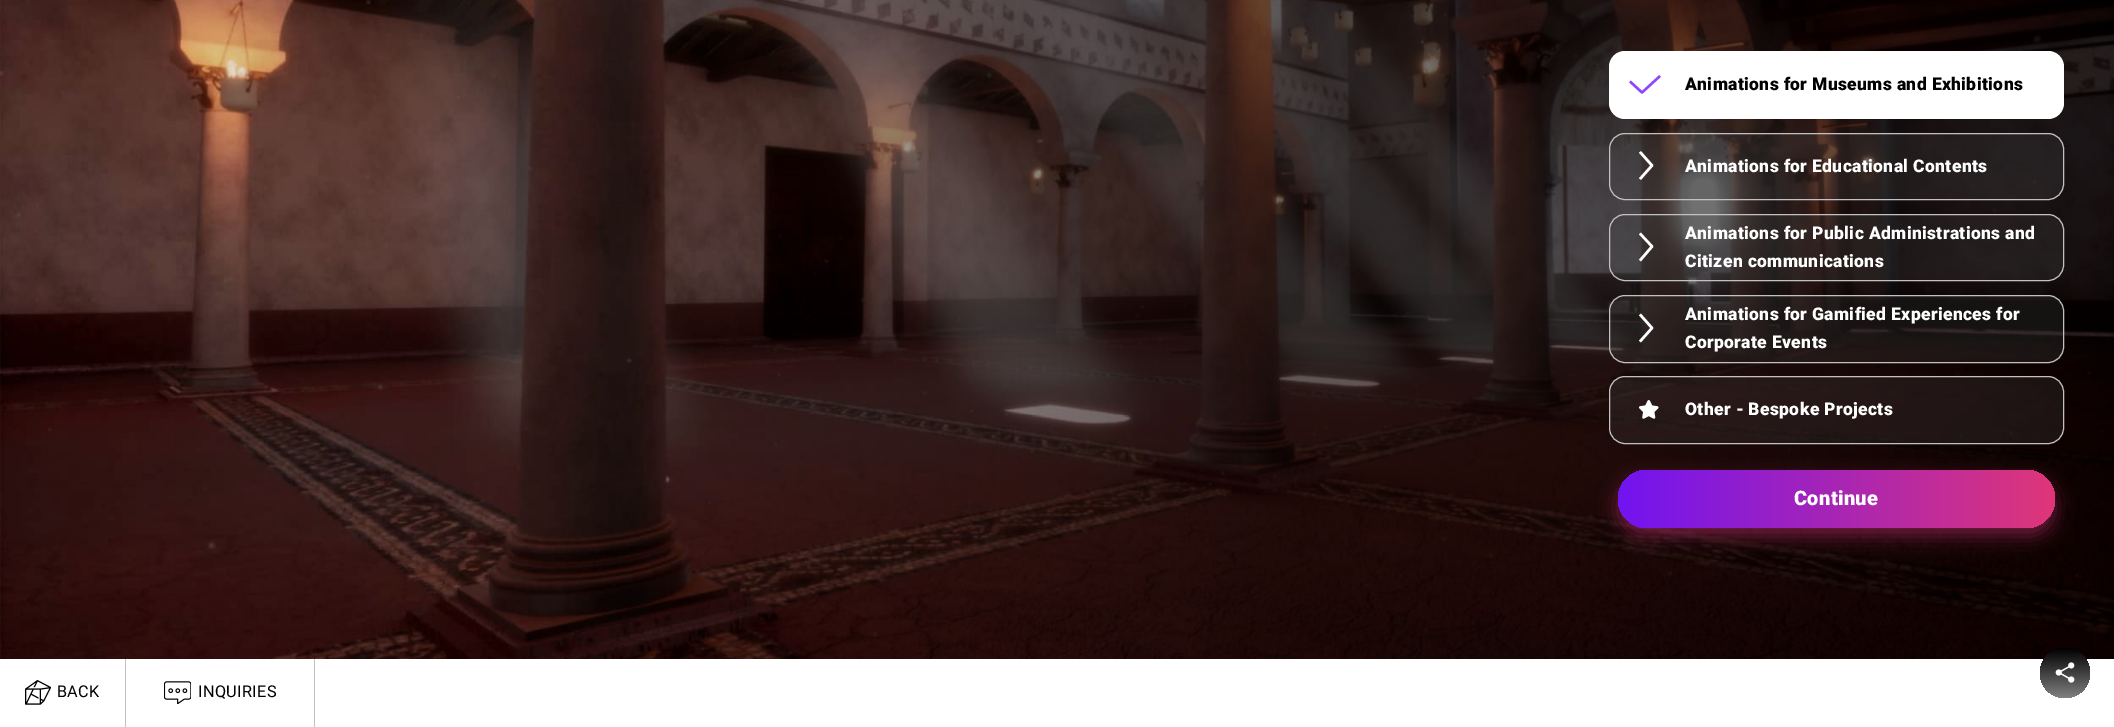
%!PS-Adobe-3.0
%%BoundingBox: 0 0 2114 727
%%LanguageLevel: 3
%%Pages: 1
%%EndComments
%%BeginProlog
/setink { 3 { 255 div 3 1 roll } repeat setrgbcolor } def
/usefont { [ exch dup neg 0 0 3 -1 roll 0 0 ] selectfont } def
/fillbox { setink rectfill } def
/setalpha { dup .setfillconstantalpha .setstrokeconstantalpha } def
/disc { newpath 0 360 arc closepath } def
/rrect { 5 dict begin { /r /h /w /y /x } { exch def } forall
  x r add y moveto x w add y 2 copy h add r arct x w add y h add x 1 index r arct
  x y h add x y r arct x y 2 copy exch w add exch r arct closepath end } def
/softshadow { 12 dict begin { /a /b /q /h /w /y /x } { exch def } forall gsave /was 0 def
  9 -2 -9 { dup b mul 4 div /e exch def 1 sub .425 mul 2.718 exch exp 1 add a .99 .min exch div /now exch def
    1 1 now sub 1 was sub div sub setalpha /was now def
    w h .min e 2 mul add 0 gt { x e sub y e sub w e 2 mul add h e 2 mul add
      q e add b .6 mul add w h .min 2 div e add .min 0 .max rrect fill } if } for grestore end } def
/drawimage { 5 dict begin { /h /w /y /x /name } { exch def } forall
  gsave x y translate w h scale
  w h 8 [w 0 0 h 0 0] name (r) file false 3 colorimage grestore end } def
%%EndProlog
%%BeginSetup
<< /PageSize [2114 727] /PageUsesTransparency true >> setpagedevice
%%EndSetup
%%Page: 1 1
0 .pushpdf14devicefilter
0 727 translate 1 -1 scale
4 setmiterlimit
0 0 2114 727 255 255 255 fillbox
(assets/img1.rgb) 0 0 2114 659 drawimage
1609 51 455 68 16 rrect fill
140 71 255 setink
2.4 setlinewidth
1 setlinejoin
1660 76 moveto 1642 92.5 lineto 1630 81.5 lineto stroke
/Roboto-Black 17.5 usefont
0 0 0 setink
1685 90 moveto 0.35 0 (Animations for Museums and Exhibitions) ashow
0.25 setalpha
70 70 70 setink
1609 133 455 67 16 rrect fill
1 setalpha
255 255 255 setink
2.5 setlinewidth
1640 152 moveto 1652 165.5 lineto 1640 179 lineto stroke
193 193 193 setink
1 setlinewidth
0 setlinejoin
1609.5 133.5 454 66 15.5 rrect stroke
255 255 255 setink
1685 172 moveto 0.35 0 (Animations for Educational Contents) ashow
0.25 setalpha
70 70 70 setink
1609 214 455 67 16 rrect fill
1 setalpha
255 255 255 setink
2.5 setlinewidth
1 setlinejoin
1640 233.5 moveto 1652 246.5 lineto 1640 260.5 lineto stroke
193 193 193 setink
1 setlinewidth
0 setlinejoin
1609.5 214.5 454 66 15.5 rrect stroke
255 255 255 setink
1685 239 moveto 0.35 0 (Animations for Public Administrations and) ashow
1685 267 moveto 0.35 0 (Citizen communications) ashow
0.25 setalpha
70 70 70 setink
1609 295 455 68 16 rrect fill
1 setalpha
255 255 255 setink
2.5 setlinewidth
1 setlinejoin
1640 314.5 moveto 1652 328 lineto 1640 341.5 lineto stroke
193 193 193 setink
1 setlinewidth
0 setlinejoin
1609.5 295.5 454 67 15.5 rrect stroke
255 255 255 setink
1685 320 moveto 0.35 0 (Animations for Gamified Experiences for) ashow
1685 348 moveto 0.35 0 (Corporate Events) ashow
0.25 setalpha
70 70 70 setink
1609 376 455 68 16 rrect fill
1 setalpha
(assets/img2.rgb) 1639 400 20 19 drawimage
193 193 193 setink
1609.5 376.5 454 67 15.5 rrect stroke
255 255 255 setink
1685 415 moveto 0.35 0 (Other - Bespoke Projects) ashow
215 52 129 setink
1618 479 437 57 28.5 9 0.46 softshadow
gsave 1618 470 437 58 29 rrect clip newpath
<< /ShadingType 2 /ColorSpace /DeviceRGB /Coords [2055 499 1618 499] /Extend [true true] /Function << /FunctionType 2 /Domain [0 1] /C0 [0.875 0.212 0.471] /C1 [0.443 0.078 0.945] /N 1 >> >> shfill grestore
/Roboto-Black 20 usefont
255 255 255 setink
1794 505 moveto 0.35 0 (Continue) ashow
125 659 1 68 193 193 193 fillbox
(assets/img3.rgb) 25 680 26 25 drawimage
/Roboto-Regular 16.25 usefont
0 0 0 setink
57 697 moveto 0.35 0 (BACK) ashow
314 659 1 68 193 193 193 fillbox
(assets/img4.rgb) 164 681 27 23 drawimage
0 0 0 setink
198 697 moveto 0.35 0 (INQUIRIES) ashow
gsave 2065 673 25 disc clip newpath
<< /ShadingType 2 /ColorSpace /DeviceRGB /Coords [2065 648 2065 698] /Extend [true true] /Function << /FunctionType 2 /Domain [0 1] /C0 [0 0 0] /C1 [0.502 0.502 0.502] /N 1 >> >> shfill grestore
(assets/img5.rgb) 2055 662 20 21 drawimage
.poppdf14devicefilter showpage
%%EOF
